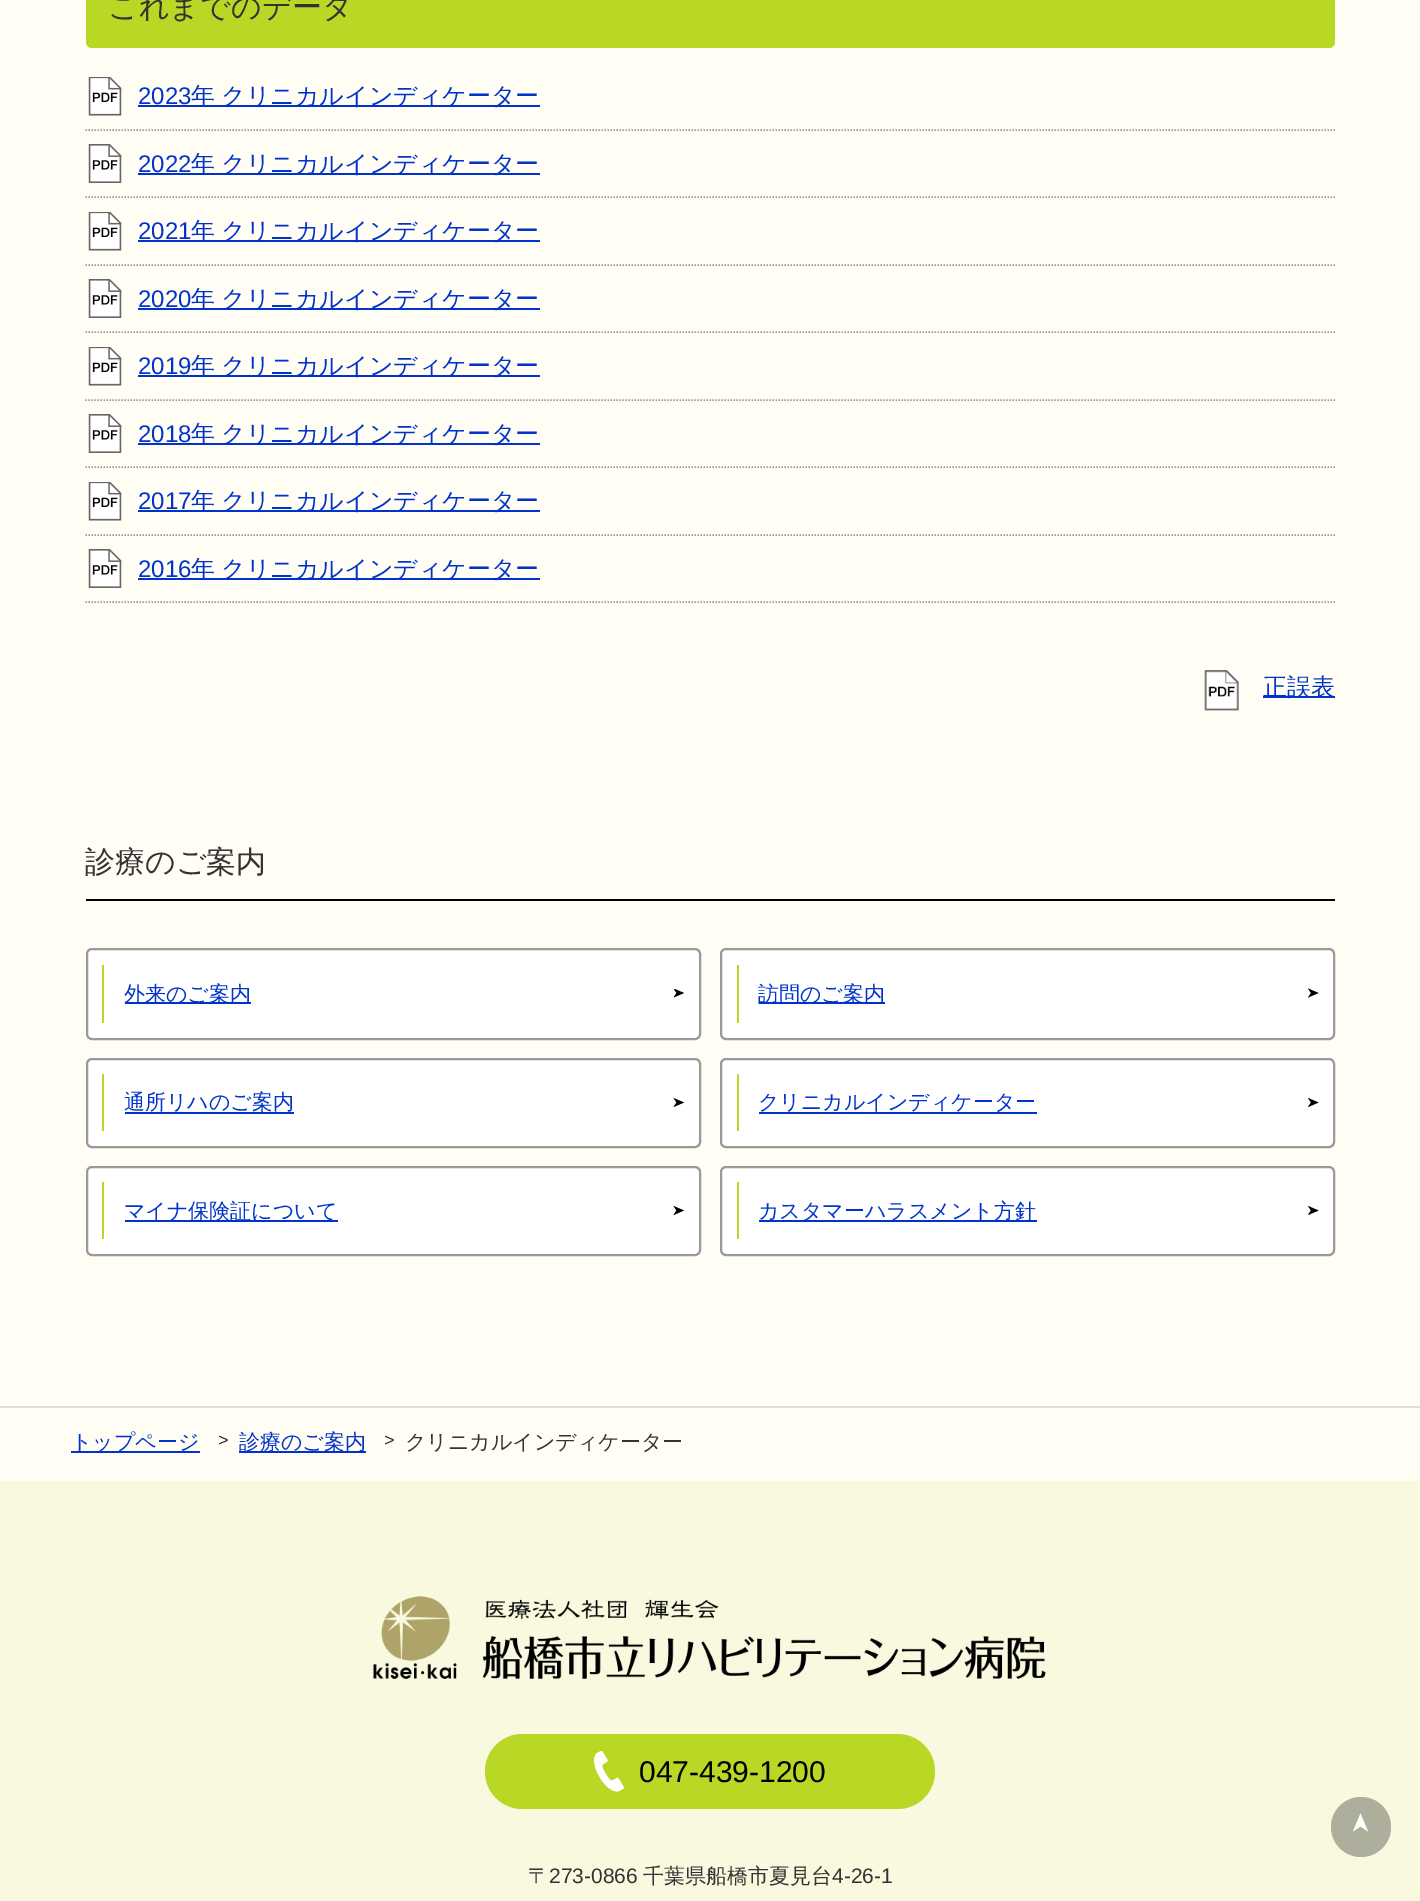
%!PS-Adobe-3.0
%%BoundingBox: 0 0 1420 1901
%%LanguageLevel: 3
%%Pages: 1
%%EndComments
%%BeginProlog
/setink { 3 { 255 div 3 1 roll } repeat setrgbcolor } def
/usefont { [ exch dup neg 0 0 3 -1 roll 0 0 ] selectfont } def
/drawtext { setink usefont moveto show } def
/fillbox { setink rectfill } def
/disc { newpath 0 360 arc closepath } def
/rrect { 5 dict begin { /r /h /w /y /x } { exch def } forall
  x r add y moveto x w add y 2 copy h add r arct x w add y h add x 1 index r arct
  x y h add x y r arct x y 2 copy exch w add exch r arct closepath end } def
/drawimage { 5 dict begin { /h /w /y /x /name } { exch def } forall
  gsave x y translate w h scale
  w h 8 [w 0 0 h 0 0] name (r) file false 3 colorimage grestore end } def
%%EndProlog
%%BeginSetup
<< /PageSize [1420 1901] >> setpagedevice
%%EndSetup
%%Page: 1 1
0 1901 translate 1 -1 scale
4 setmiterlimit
0 0 1420 1901 255 253 244 fillbox
185 216 37 setink
86 -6 1249 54 6 rrect fill
(これまでのデータ) 108 17 /WenQuanYiZenHei-Medium 30 51 51 51 drawtext
153 153 153 setink
1.5 setlinewidth
[1.5 1.5] 0 setdash
85.5 130 moveto 1335 130 lineto stroke
(assets/img1.rgb) 88 77 34 39 drawimage
(2023) 138 104 /LiberationSans-Regular 24 0 51 204 drawtext
138 105 402 2 0 51 204 fillbox
/WenQuanYiZenHei-Medium 24 usefont
191 104 moveto -1 0 32 (年 クリニカルインディケーター) widthshow
153 153 153 setink
85.5 197 moveto 1335 197 lineto stroke
(assets/img2.rgb) 88 144 34 39 drawimage
(2022) 138 172 /LiberationSans-Regular 24 0 51 204 drawtext
138 173 402 2 0 51 204 fillbox
/WenQuanYiZenHei-Medium 24 usefont
191 172 moveto -1 0 32 (年 クリニカルインディケーター) widthshow
153 153 153 setink
85.5 265 moveto 1335 265 lineto stroke
(assets/img1.rgb) 88 212 34 39 drawimage
(2021) 138 239 /LiberationSans-Regular 24 0 51 204 drawtext
138 240 402 2 0 51 204 fillbox
/WenQuanYiZenHei-Medium 24 usefont
191 239 moveto -1 0 32 (年 クリニカルインディケーター) widthshow
153 153 153 setink
85.5 332 moveto 1335 332 lineto stroke
(assets/img2.rgb) 88 279 34 39 drawimage
(2020) 138 307 /LiberationSans-Regular 24 0 51 204 drawtext
138 308 402 2 0 51 204 fillbox
/WenQuanYiZenHei-Medium 24 usefont
191 307 moveto -1 0 32 (年 クリニカルインディケーター) widthshow
153 153 153 setink
85.5 400 moveto 1335 400 lineto stroke
(assets/img1.rgb) 88 347 34 39 drawimage
(2019) 138 374 /LiberationSans-Regular 24 0 51 204 drawtext
138 375 402 2 0 51 204 fillbox
/WenQuanYiZenHei-Medium 24 usefont
191 374 moveto -1 0 32 (年 クリニカルインディケーター) widthshow
153 153 153 setink
85.5 467 moveto 1335 467 lineto stroke
(assets/img2.rgb) 88 414 34 39 drawimage
(2018) 138 442 /LiberationSans-Regular 24 0 51 204 drawtext
138 443 402 2 0 51 204 fillbox
/WenQuanYiZenHei-Medium 24 usefont
191 442 moveto -1 0 32 (年 クリニカルインディケーター) widthshow
153 153 153 setink
85.5 535 moveto 1335 535 lineto stroke
(assets/img1.rgb) 88 482 34 39 drawimage
(2017) 138 509 /LiberationSans-Regular 24 0 51 204 drawtext
138 510 402 2 0 51 204 fillbox
/WenQuanYiZenHei-Medium 24 usefont
191 509 moveto -1 0 32 (年 クリニカルインディケーター) widthshow
153 153 153 setink
85.5 602 moveto 1335 602 lineto stroke
(assets/img2.rgb) 88 549 34 39 drawimage
(2016) 138 577 /LiberationSans-Regular 24 0 51 204 drawtext
138 578 402 2 0 51 204 fillbox
/WenQuanYiZenHei-Medium 24 usefont
191 577 moveto -1 0 32 (年 クリニカルインディケーター) widthshow
(assets/img3.rgb) 1204 670 35 41 drawimage
1263 696 72 2 0 51 204 fillbox
(正誤表) 1263 695 /WenQuanYiZenHei-Medium 24 0 51 204 drawtext
86 899 1249 2 0 0 0 fillbox
(診療のご案内) 85 872 /WenQuanYiZenHei-Medium 30 51 51 51 drawtext
255 255 255 setink
87 949 613 90 5 rrect gsave fill grestore
153 153 153 setink
2 setlinewidth
[] 0 setdash
stroke
102 965 2 58 185 216 37 fillbox
125 1002 126 2 0 51 204 fillbox
(外来のご案内) 124 1001 /WenQuanYiZenHei-Medium 21 0 51 204 drawtext
gsave
674 989 10 9 rectclip
0 0 0 setink
673.5 988.5 moveto 684 993 lineto 673.5 997.5 lineto 676.5 993 lineto closepath eofill
grestore
255 255 255 setink
721 949 613 90 5 rrect gsave fill grestore
153 153 153 setink
stroke
737 965 2 58 185 216 37 fillbox
759 1002 126 2 0 51 204 fillbox
(訪問のご案内) 758 1001 /WenQuanYiZenHei-Medium 21 0 51 204 drawtext
0 0 0 setink
1308 988.5 moveto 1318.5 993 lineto 1308 997.5 lineto 1311 993 lineto closepath eofill
255 255 255 setink
87 1059 613 88 5 rrect gsave fill grestore
153 153 153 setink
stroke
102 1074 2 57 185 216 37 fillbox
(通所リハのご案内) 124 1109 /WenQuanYiZenHei-Medium 21 0 51 204 drawtext
125 1112 169 2 0 51 204 fillbox
0 0 0 setink
673.5 1098 moveto 684 1102.5 lineto 673.5 1107 lineto 676.5 1102.5 lineto closepath eofill
255 255 255 setink
721 1059 613 88 5 rrect gsave fill grestore
153 153 153 setink
stroke
737 1074 2 57 185 216 37 fillbox
759 1112 278 2 0 51 204 fillbox
(クリニカルインディケーター) 758 1109 /WenQuanYiZenHei-Medium 21 0 51 204 drawtext
0 0 0 setink
1308 1098 moveto 1318.5 1102.5 lineto 1308 1107 lineto 1311 1102.5 lineto closepath eofill
255 255 255 setink
87 1167 613 88 5 rrect gsave fill grestore
153 153 153 setink
stroke
102 1182 2 57 185 216 37 fillbox
125 1220 213 2 0 51 204 fillbox
(マイナ保険証について) 124 1218 /WenQuanYiZenHei-Medium 21 0 51 204 drawtext
0 0 0 setink
673.5 1206 moveto 684 1210.5 lineto 673.5 1215 lineto 676.5 1210.5 lineto closepath eofill
255 255 255 setink
721 1167 613 88 5 rrect gsave fill grestore
153 153 153 setink
stroke
737 1182 2 57 185 216 37 fillbox
759 1220 278 2 0 51 204 fillbox
(カスタマーハラスメント方針) 758 1218 /WenQuanYiZenHei-Medium 21 0 51 204 drawtext
0 0 0 setink
1308 1206 moveto 1318.5 1210.5 lineto 1308 1215 lineto 1311 1210.5 lineto closepath eofill
0 1406 1420 2 221 221 221 fillbox
71 1451 129 2 0 51 204 fillbox
(トップページ) 71 1449 /WenQuanYiZenHei-Medium 21 0 51 204 drawtext
(>) 218 1446 /LiberationSans-Regular 18 51 51 51 drawtext
239 1451 127 2 0 51 204 fillbox
(診療のご案内) 239 1449 /WenQuanYiZenHei-Medium 21 0 51 204 drawtext
(>) 384 1446 /LiberationSans-Regular 18 51 51 51 drawtext
(クリニカルインディケーター) 405 1449 /WenQuanYiZenHei-Medium 21 51 51 51 drawtext
0 1481 1420 420 248 249 223 fillbox
(assets/img4.rgb) 373 1596 673 83 drawimage
185 216 37 setink
485 1734 450 75 37.5 rrect fill
(assets/img5.rgb) 594 1751 30 41 drawimage
(047-439-1200) 639 1782 /LiberationSans-Regular 30 0 0 0 drawtext
(〒) 528 1883 /WenQuanYiZenHei-Medium 21 51 51 51 drawtext
(273-0866) 549 1883 /LiberationSans-Regular 21 51 51 51 drawtext
(千葉県船橋市夏見台) 643 1883 /WenQuanYiZenHei-Medium 21 51 51 51 drawtext
(4-26-1) 832 1883 /LiberationSans-Regular 21 51 51 51 drawtext
174 174 156 setink
1361 1827 30 disc fill
255 255 255 setink
1353 1831.5 moveto 1360.5 1813.5 lineto 1368 1831.5 lineto 1360.5 1826.5 lineto closepath fill
showpage
%%EOF
